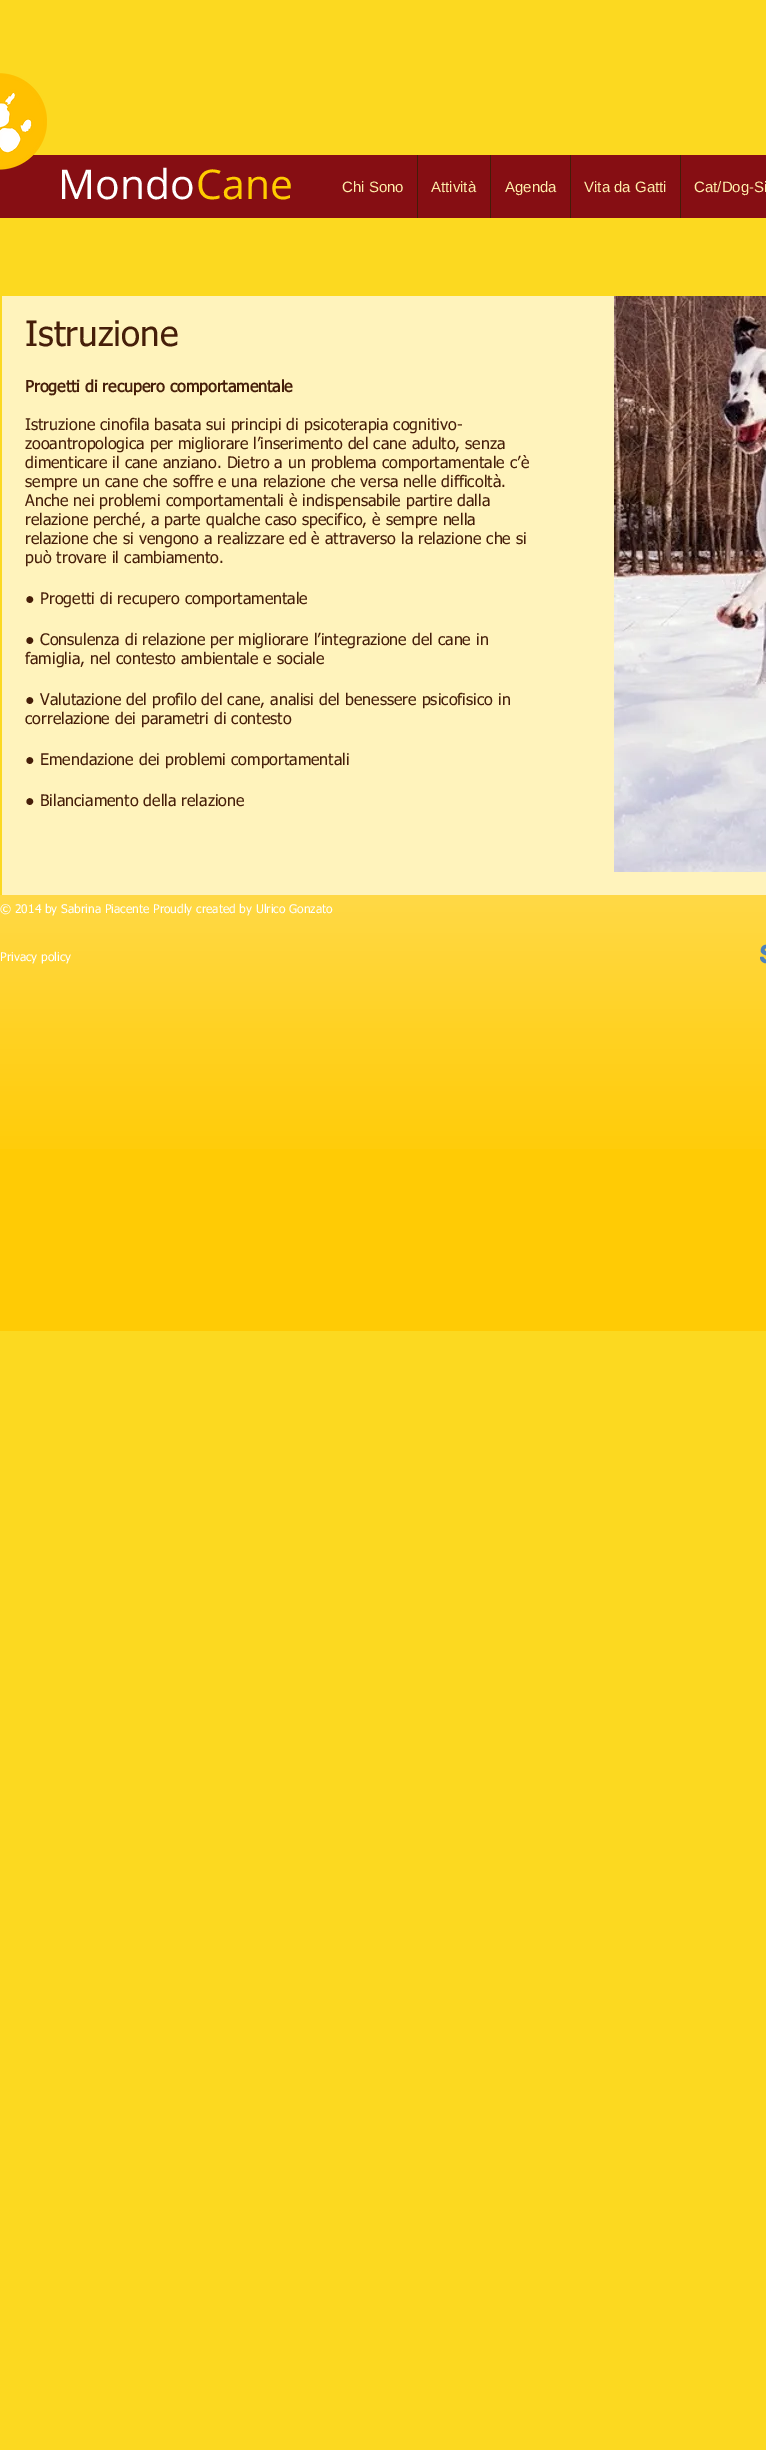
%!PS-Adobe-3.0
%%BoundingBox: 0 0 766 2450
%%LanguageLevel: 3
%%Pages: 1
%%EndComments
%%BeginProlog
/setink { 3 { 255 div 3 1 roll } repeat setrgbcolor } def
/usefont { [ exch dup neg 0 0 3 -1 roll 0 0 ] selectfont } def
/drawtext { setink usefont moveto show } def
/fillbox { setink rectfill } def
/drawimage { 5 dict begin { /h /w /y /x /name } { exch def } forall
  gsave x y translate w h scale
  w h 8 [w 0 0 h 0 0] name (r) file false 3 colorimage grestore end } def
%%EndProlog
%%BeginSetup
<< /PageSize [766 2450] >> setpagedevice
%%EndSetup
%%Page: 1 1
0 2450 translate 1 -1 scale
4 setmiterlimit
0 0 766 2450 252 217 32 fillbox
0 155 766 63 134 14 19 fillbox
(assets/img1.rgb) 0 73 47 97 drawimage
(Mondo) 58 199 /OpenSans-Regular 41 255 255 255 drawtext
(Cane) 196 199 /OpenSans-Regular 41 255 204 0 drawtext
2 296 764 599 255 243 188 fillbox
(Istruzione) 25 346 /tahoma-Regular 35 70 30 9 drawtext
(assets/img2.rgb) 614 296 152 576 drawimage
(Progetti di recupero comportamentale) 25 392 /tahoma-Bold 16 70 30 9 drawtext
(Istruzione cinofila basata sui principi di psicoterapia cognitivo-) 25 430 /tahoma-Regular 16 70 30 9 drawtext
(zooantropologica per migliorare l’inserimento del cane adulto, senza) 25 449 /tahoma-Regular 16 70 30 9 drawtext
(dimenticare il cane anziano. Dietro a un problema comportamentale c’è) 25 468 /tahoma-Regular 16 70 30 9 drawtext
(sempre un cane che soffre e una relazione che versa nelle difficoltà.) 25 487 /tahoma-Regular 16 70 30 9 drawtext
(Anche nei problemi comportamentali è indispensabile partire dalla) 25 506 /tahoma-Regular 16 70 30 9 drawtext
(relazione perché, a parte qualche caso specifico, è sempre nella) 25 525 /tahoma-Regular 16 70 30 9 drawtext
(relazione che si vengono a realizzare ed è attraverso la relazione che si) 25 544 /tahoma-Regular 16 70 30 9 drawtext
(può trovare il cambiamento.) 25 563 /tahoma-Regular 16 70 30 9 drawtext
(●) 25 604 /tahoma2-Regular 16 70 30 9 drawtext
(Progetti di recupero comportamentale) 40 604 /tahoma-Regular 16 70 30 9 drawtext
(●) 25 645 /tahoma2-Regular 16 70 30 9 drawtext
(Consulenza di relazione per migliorare l’integrazione del cane in) 40 645 /tahoma-Regular 16 70 30 9 drawtext
(famiglia, nel contesto ambientale e sociale) 25 664 /tahoma-Regular 16 70 30 9 drawtext
(●) 25 705 /tahoma2-Regular 16 70 30 9 drawtext
(Valutazione del profilo del cane, analisi del benessere psicofisico in) 40 705 /tahoma-Regular 16 70 30 9 drawtext
(correlazione dei parametri di contesto) 25 724 /tahoma-Regular 16 70 30 9 drawtext
(●) 25 765 /tahoma2-Regular 16 70 30 9 drawtext
(Emendazione dei problemi comportamentali) 40 765 /tahoma-Regular 16 70 30 9 drawtext
(●) 25 806 /tahoma2-Regular 16 70 30 9 drawtext
(Bilanciamento della relazione) 40 806 /tahoma-Regular 16 70 30 9 drawtext
(Chi Sono) 342 192 /LiberationSans-Regular 15 255 238 170 drawtext
417 155 1 63 68 28 8 fillbox
(Attività) 431 192 /LiberationSans-Regular 15 255 238 170 drawtext
490 155 1 63 68 28 8 fillbox
(Agenda) 505 192 /LiberationSans-Regular 15 255 238 170 drawtext
570 155 1 63 68 28 8 fillbox
(Vita da Gatti) 584 192 /LiberationSans-Regular 15 255 238 170 drawtext
680 155 1 63 68 28 8 fillbox
(Cat/Dog-Si) 694 192 /LiberationSans-Regular 15 255 238 170 drawtext
0 895 766 436 255 203 5 fillbox
(assets/img3.rgb) 0 895 766 254 drawimage
(© 2014 by Sabrina Piacente Proudly created by Ulrico Gonzato) 0 913 /tahoma-Regular 12 255 255 255 drawtext
(Privacy policy) 0 961 /tahoma-Regular 12 255 255 255 drawtext
(assets/img4.rgb) 760 944 6 20 drawimage
showpage
%%EOF
